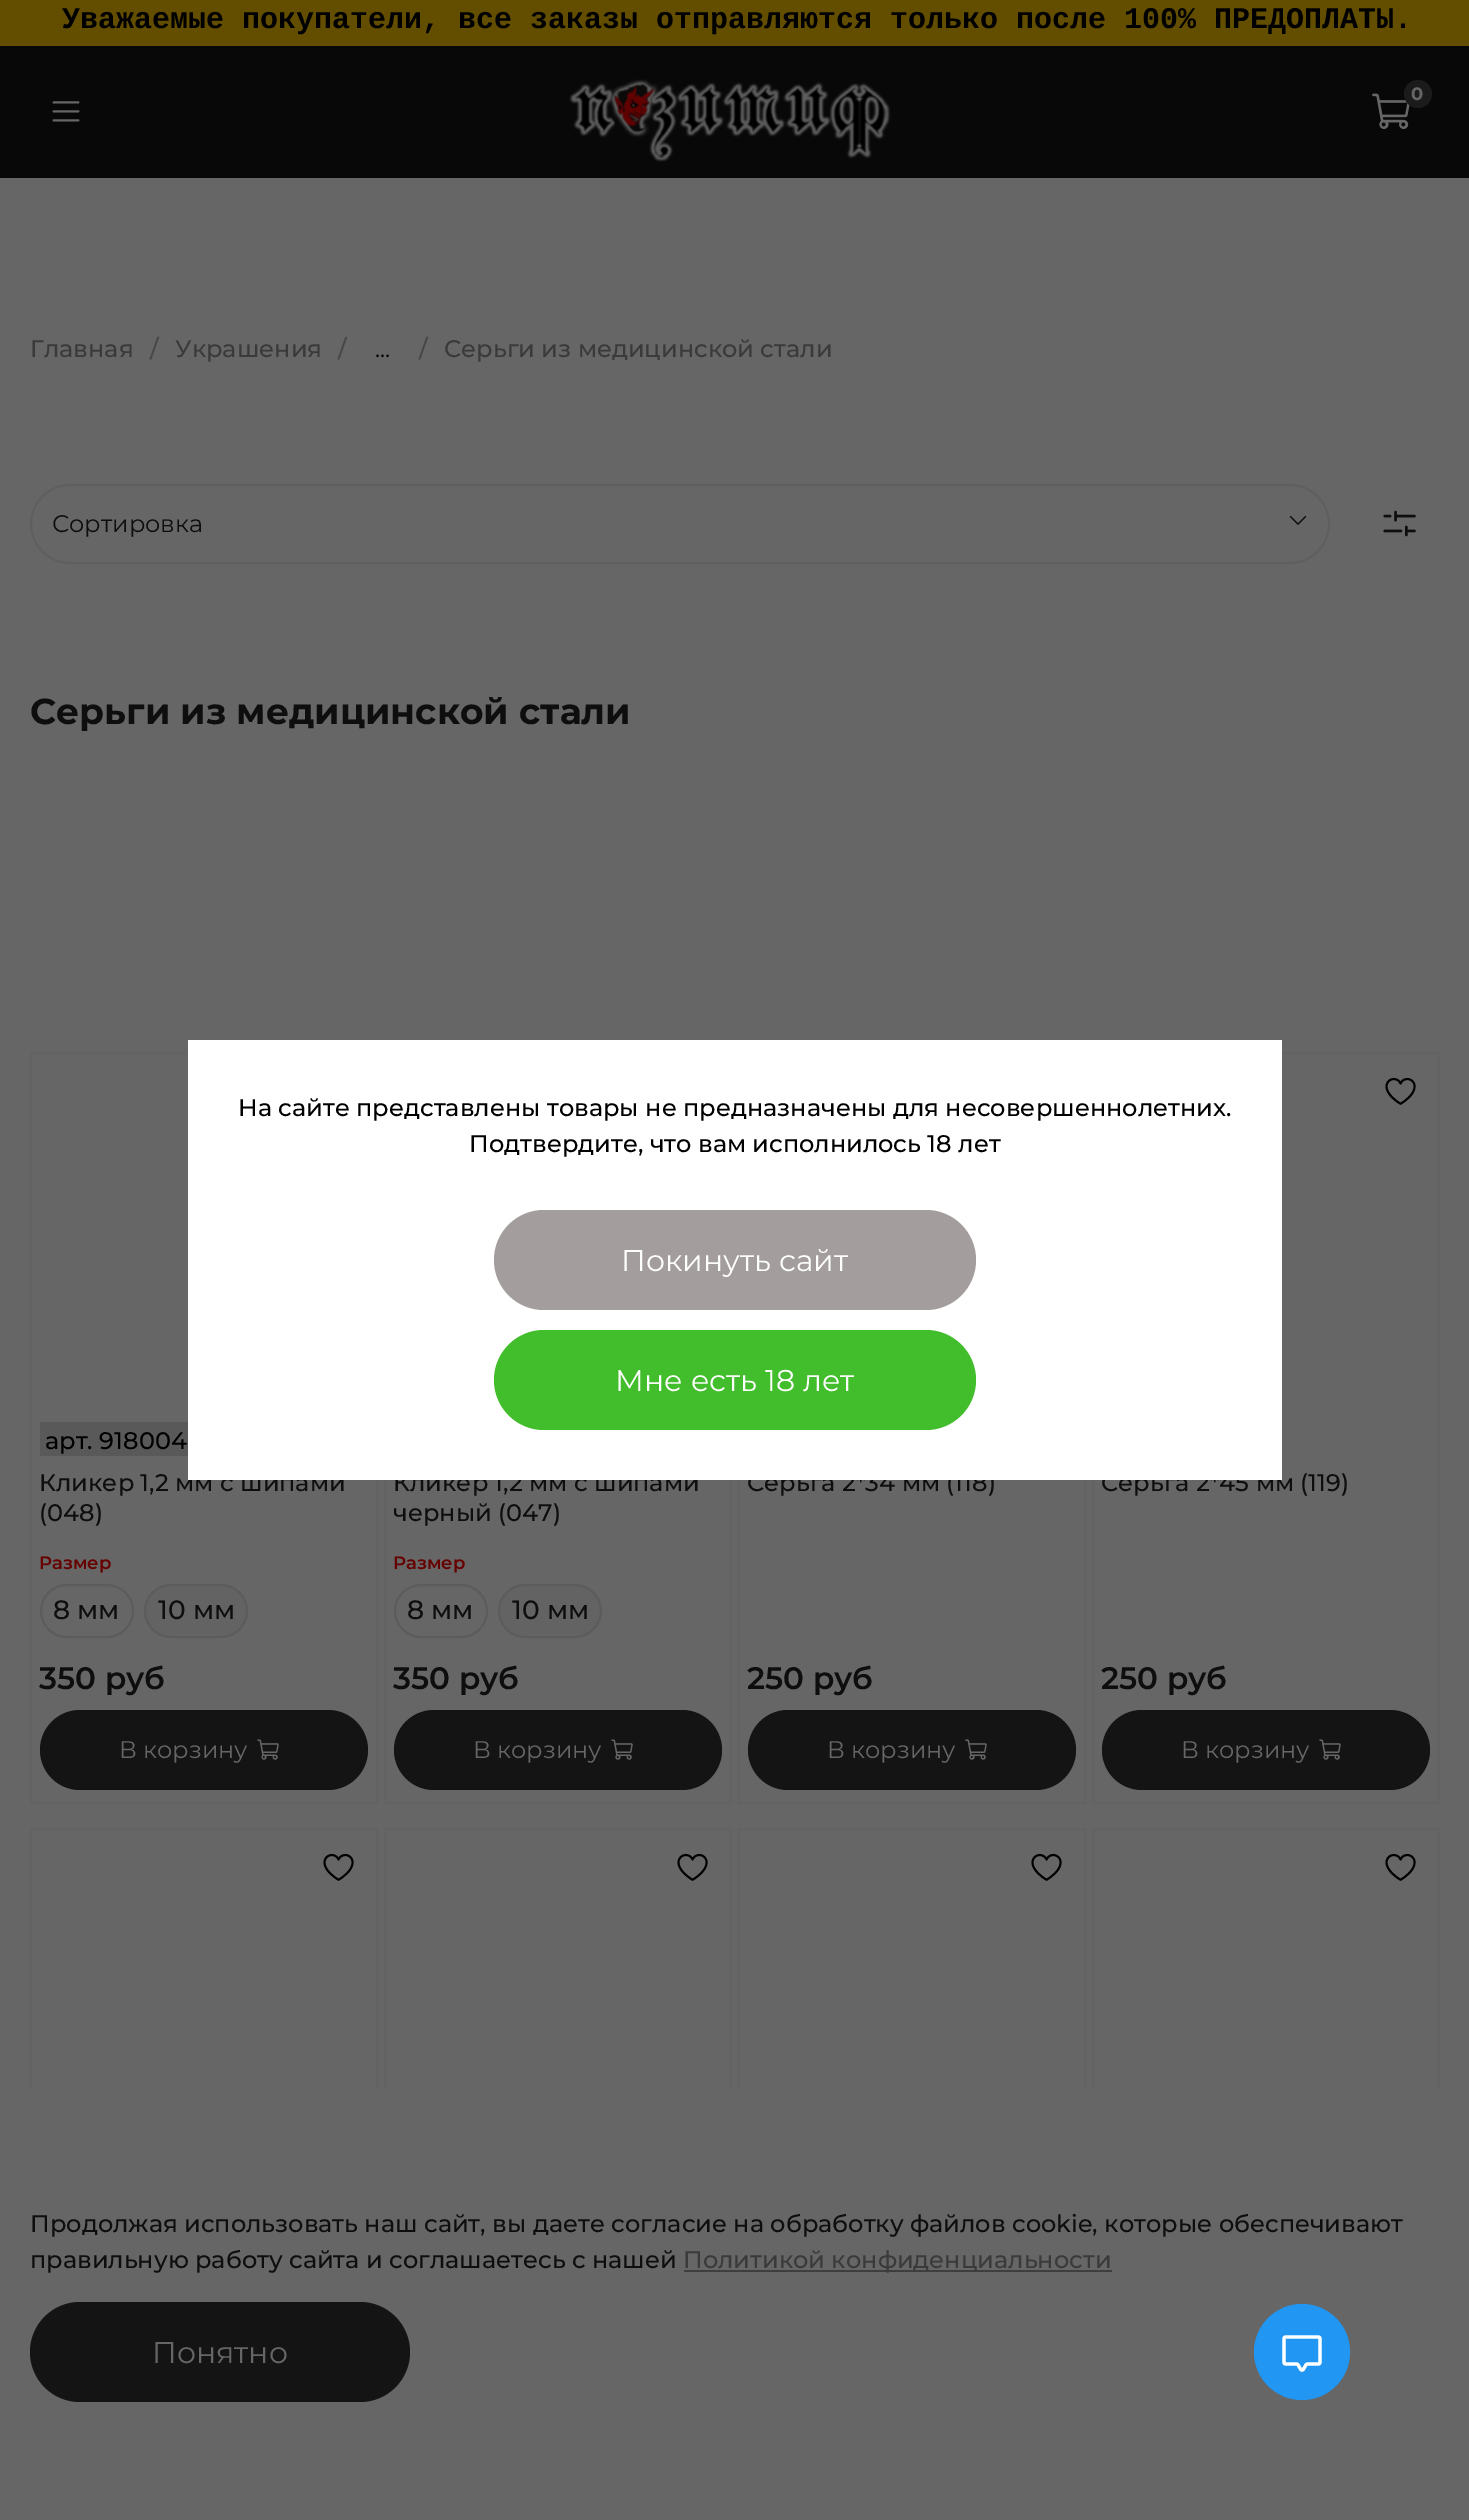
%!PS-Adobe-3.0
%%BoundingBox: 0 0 1469 2520
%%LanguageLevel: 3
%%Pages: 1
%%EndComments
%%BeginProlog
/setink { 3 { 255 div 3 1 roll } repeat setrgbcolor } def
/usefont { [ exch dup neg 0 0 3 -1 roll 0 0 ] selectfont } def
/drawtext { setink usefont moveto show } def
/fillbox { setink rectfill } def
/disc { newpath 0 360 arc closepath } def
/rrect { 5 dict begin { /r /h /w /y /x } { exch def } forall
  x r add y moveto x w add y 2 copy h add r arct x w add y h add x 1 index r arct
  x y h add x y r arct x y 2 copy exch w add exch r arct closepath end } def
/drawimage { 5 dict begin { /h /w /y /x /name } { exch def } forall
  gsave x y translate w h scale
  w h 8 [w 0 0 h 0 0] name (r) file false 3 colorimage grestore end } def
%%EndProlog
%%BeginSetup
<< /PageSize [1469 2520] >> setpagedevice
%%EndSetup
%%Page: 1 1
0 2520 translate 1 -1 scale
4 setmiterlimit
0 0 1469 2520 102 102 102 fillbox
0 0 1469 46 99 78 0 fillbox
(Уважаемые покупатели, все заказы отправляются только после 100% ПРЕДОПЛАТЫ.) 62 28 /LiberationMono-Bold 30 0 0 0 drawtext
0 46 1469 132 8 8 8 fillbox
(assets/img1.rgb) 569 79 322 83 drawimage
(assets/img2.rgb) 1372 93 38 36 drawimage
27 27 27 setink
1418 94 14 disc fill
(0) 1411 100 /Montserrat-Bold 18 102 102 102 drawtext
(assets/img3.rgb) 52 101 28 21 drawimage
(Главная) 30 357 /Montserrat-Medium 24 58 58 58 drawtext
(/) 150 357 /Montserrat-Medium 24 71 71 71 drawtext
(Украшения) 175 357 /Montserrat-Medium 24 58 58 58 drawtext
(/) 338 357 /Montserrat-Medium 24 71 71 71 drawtext
(...) 375 357 /Montserrat-Regular 24 0 0 0 drawtext
(/) 419 357 /Montserrat-Medium 24 71 71 71 drawtext
(Серьги из медицинской стали) 444 357 /Montserrat-Medium 24 58 58 58 drawtext
95 95 95 setink
2 setlinewidth
31 485 1298 78 39 rrect stroke
(Сортировка) 52 532 /Montserrat-Regular 24 14 14 14 drawtext
(assets/img4.rgb) 1289 515 18 10 drawimage
(assets/img5.rgb) 1383 510 33 27 drawimage
(Серьги из медицинской стали) 30 724 /Montserrat-Bold 36 14 14 14 drawtext
99 99 99 setink
31 1053 346 750 rectstroke
40 1422 148 34 89 89 89 fillbox
(арт. 918004) 45 1449 /Montserrat-Medium 24 0 0 0 drawtext
(Кликер 1,2 мм с шипами) 39 1491 /Montserrat-Medium 24 14 14 14 drawtext
(\(048\)) 39 1521 /Montserrat-Medium 24 14 14 14 drawtext
(Размер) 39 1569 /Montserrat-SemiBold 18 102 0 0 drawtext
92 92 92 setink
41 1585 92 52 26 rrect stroke
(8 мм) 53 1619 /Montserrat-Medium 26.5 14 14 14 drawtext
99 99 99 setink
145 1585 102 52 26 rrect gsave fill grestore
92 92 92 setink
stroke
(10 мм) 158 1619 /Montserrat-Medium 26.5 14 14 14 drawtext
(350 руб) 39 1689 /Montserrat-SemiBold 31 14 14 14 drawtext
20 20 20 setink
40 1710 328 80 40 rrect fill
(В корзину) 119 1758 /Montserrat-Regular 24 102 102 102 drawtext
(assets/img6.rgb) 257 1739 22 21 drawimage
99 99 99 setink
385 1053 346 750 rectstroke
(Кликер 1,2 мм с шипами) 393 1491 /Montserrat-Medium 24 14 14 14 drawtext
(черный \(047\)) 393 1521 /Montserrat-Medium 24 14 14 14 drawtext
(Размер) 393 1569 /Montserrat-SemiBold 18 102 0 0 drawtext
92 92 92 setink
395 1585 92 52 26 rrect stroke
(8 мм) 407 1619 /Montserrat-Medium 26.5 14 14 14 drawtext
99 99 99 setink
499 1585 102 52 26 rrect gsave fill grestore
92 92 92 setink
stroke
(10 мм) 512 1619 /Montserrat-Medium 26.5 14 14 14 drawtext
(350 руб) 393 1689 /Montserrat-SemiBold 31 14 14 14 drawtext
20 20 20 setink
394 1710 328 80 40 rrect fill
(В корзину) 473 1758 /Montserrat-Regular 24 102 102 102 drawtext
(assets/img6.rgb) 611 1739 22 21 drawimage
99 99 99 setink
739 1053 346 750 rectstroke
(Серьга 2*34 мм \(118\)) 747 1491 /Montserrat-Medium 24 14 14 14 drawtext
(250 руб) 747 1689 /Montserrat-SemiBold 31 14 14 14 drawtext
20 20 20 setink
748 1710 328 80 40 rrect fill
(В корзину) 827 1758 /Montserrat-Regular 24 102 102 102 drawtext
(assets/img6.rgb) 965 1739 22 21 drawimage
99 99 99 setink
1093 1053 346 750 rectstroke
(assets/img7.rgb) 1385 1077 31 28 drawimage
(Серьга 2*45 мм \(119\)) 1101 1491 /Montserrat-Medium 24 14 14 14 drawtext
(250 руб) 1101 1689 /Montserrat-SemiBold 31 14 14 14 drawtext
20 20 20 setink
1102 1710 328 80 40 rrect fill
(В корзину) 1181 1758 /Montserrat-Regular 24 102 102 102 drawtext
(assets/img6.rgb) 1319 1739 22 21 drawimage
99 99 99 setink
31 1829 346 642 rectstroke
(assets/img7.rgb) 323 1853 31 28 drawimage
385 1829 346 642 rectstroke
(assets/img7.rgb) 677 1853 31 28 drawimage
739 1829 346 642 rectstroke
(assets/img7.rgb) 1031 1853 31 28 drawimage
1093 1829 346 642 rectstroke
(assets/img7.rgb) 1385 1853 31 28 drawimage
188 1040 1094 440 255 255 255 fillbox
(На сайте представлены товары не предназначены для несовершеннолетних.) 238 1116 /Montserrat-Medium 24 0 0 0 drawtext
(Подтвердите, что вам исполнилось 18 лет) 469 1152 /Montserrat-Medium 24 0 0 0 drawtext
163 157 157 setink
494 1210 482 100 50 rrect fill
(Покинуть сайт) 621 1271 /Montserrat-Regular 30 255 255 255 drawtext
66 189 44 setink
494 1330 482 100 50 rrect fill
(Мне есть 18 лет) 615 1391 /Montserrat-Regular 30 255 255 255 drawtext
30 2088 1410 384 102 102 102 fillbox
(Продолжая использовать наш сайт, вы даете согласие на обработку файлов cookie, которые обеспечивают) 30 2232 /Montserrat-Medium 24 14 14 14 drawtext
(правильную работу сайта и соглашаетесь с нашей) 30 2268 /Montserrat-Medium 24 14 14 14 drawtext
684 2270 428 2 62 62 62 fillbox
(Политикой конфиденциальности) 683 2268 /Montserrat-Medium 24 58 58 58 drawtext
20 20 20 setink
30 2302 380 100 50 rrect fill
(Понятно) 152 2363 /Montserrat-Regular 30 102 102 102 drawtext
33 150 243 setink
1302 2352 48 disc fill
(assets/img8.rgb) 1282 2335 40 37 drawimage
showpage
%%EOF
